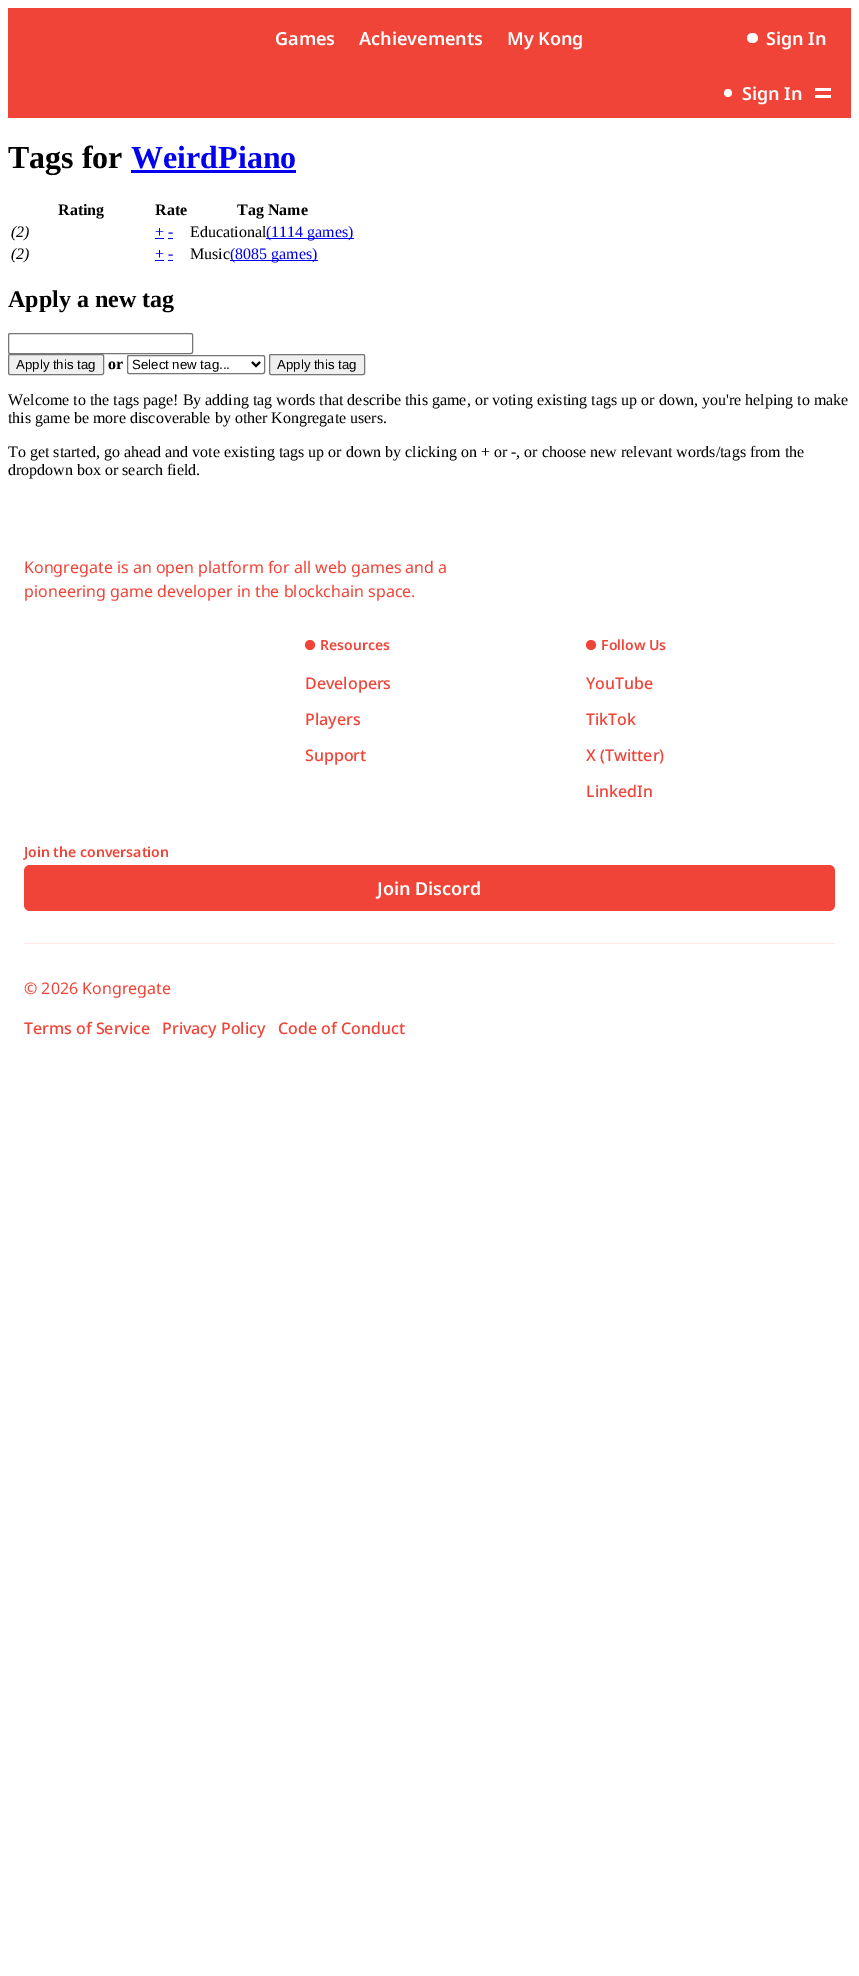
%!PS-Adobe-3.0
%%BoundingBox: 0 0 859 1976
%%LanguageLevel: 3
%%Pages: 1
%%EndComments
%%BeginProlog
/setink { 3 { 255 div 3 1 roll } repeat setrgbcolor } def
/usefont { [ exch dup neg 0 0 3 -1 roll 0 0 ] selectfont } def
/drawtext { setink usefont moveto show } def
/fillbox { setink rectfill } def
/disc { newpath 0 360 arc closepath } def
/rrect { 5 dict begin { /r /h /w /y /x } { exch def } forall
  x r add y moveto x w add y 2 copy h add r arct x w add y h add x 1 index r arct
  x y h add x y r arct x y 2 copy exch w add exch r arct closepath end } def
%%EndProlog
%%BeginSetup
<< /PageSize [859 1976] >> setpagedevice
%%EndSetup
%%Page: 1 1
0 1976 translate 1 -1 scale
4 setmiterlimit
0 0 859 1976 255 255 255 fillbox
8 8 843 110 240 68 56 fillbox
(Games) 275 45 /NotoSans-SemiBold 18 255 255 255 drawtext
(Achievements) 359 45 /NotoSans-SemiBold 18 255 255 255 drawtext
(My Kong) 507 45 /NotoSans-SemiBold 18 255 255 255 drawtext
254 247 247 setink
747 33 11 10 5 rrect fill
255 255 255 setink
748 34 9 8 4 rrect fill
(Sign In) 766 45 /NotoSans-SemiBold 18 255 255 255 drawtext
728 93 4 disc fill
(Sign In) 742 100 /NotoSans-SemiBold 18 255 255 255 drawtext
815 88 16 3 255 255 255 fillbox
815 95 16 3 255 255 255 fillbox
(Tags for) 8 168 /LiberationSerif-Bold 32 0 0 0 drawtext
(WeirdPiano) 131 168 /LiberationSerif-Bold 32 0 0 238 drawtext
131 170 165 3 0 0 238 fillbox
(Rating) 58 215 /LiberationSerif-Bold 16 0 0 0 drawtext
(Rate) 155 215 /LiberationSerif-Bold 16 0 0 0 drawtext
(Tag Name) 237 215 /LiberationSerif-Bold 16 0 0 0 drawtext
(\(2\)) 11 237 /LiberationSerif-Italic 16 0 0 0 drawtext
(+ -) 155 237 /LiberationSerif-Regular 16 0 0 238 drawtext
155 238 9 1 0 0 238 fillbox
168 238 5 1 0 0 238 fillbox
(Educational) 190 237 /LiberationSerif-Regular 16 0 0 0 drawtext
266 238 88 1 0 0 238 fillbox
(\(1114 games\)) 266 237 /LiberationSerif-Regular 16 0 0 238 drawtext
(\(2\)) 11 259 /LiberationSerif-Italic 16 0 0 0 drawtext
(+ -) 155 259 /LiberationSerif-Regular 16 0 0 238 drawtext
155 260 9 1 0 0 238 fillbox
168 260 5 1 0 0 238 fillbox
(Music) 190 259 /LiberationSerif-Regular 16 0 0 0 drawtext
230 260 88 1 0 0 238 fillbox
(\(8085 games\)) 230 259 /LiberationSerif-Regular 16 0 0 238 drawtext
(Apply a new tag) 8 307 /LiberationSerif-Bold 24 0 0 0 drawtext
118 118 118 setink
8.5 333.5 184 20 1.5 rrect stroke
239 239 239 setink
8.5 354.5 95 20 1.5 rrect gsave fill grestore
118 118 118 setink
stroke
(Apply this tag) 16 369 /LiberationSans-Regular 13.25 0 0 0 drawtext
(or) 108 369 /LiberationSerif-Bold 16 0 0 0 drawtext
118 118 118 setink
127.5 355.5 137 18 1.5 rrect stroke
0 0 0 setink
2 setlinewidth
252 362 moveto 256 366 lineto 260 362 lineto stroke
(Select new tag...) 132 369 /LiberationSans-Regular 13.25 0 0 0 drawtext
239 239 239 setink
269.5 354.5 95 20 1.5 rrect gsave fill grestore
118 118 118 setink
1 setlinewidth
stroke
(Apply this tag) 277 369 /LiberationSans-Regular 13.25 0 0 0 drawtext
(Welcome to the tags page! By adding tag words that describe this game, or voting existing tags up or down, you're helping to make) 8 405 /LiberationSerif-Regular 16 0 0 0 drawtext
(this game be more discoverable by other Kongregate users.) 8 423 /LiberationSerif-Regular 16 0 0 0 drawtext
(To get started, go ahead and vote existing tags up or down by clicking on + or -, or choose new relevant words/tags from the) 8 457 /LiberationSerif-Regular 16 0 0 0 drawtext
(dropdown box or search field.) 8 475 /LiberationSerif-Regular 16 0 0 0 drawtext
24 943 811 1 253 233 231 fillbox
(Kongregate is an open platform for all web games and a) 24 573 /NotoSans-Regular 16 240 68 56 drawtext
(pioneering game developer in the blockchain space.) 24 597 /NotoSans-Regular 16 240 68 56 drawtext
310 645 5 disc fill
(Resources) 320 650 /NotoSans-SemiBold 14 240 68 56 drawtext
(Developers) 305 689 /NotoSans-Medium 16 240 68 56 drawtext
(Players) 305 725 /NotoSans-Medium 16 240 68 56 drawtext
(Support) 305 761 /NotoSans-Medium 16 240 68 56 drawtext
591 645 5 disc fill
(Follow Us) 601 650 /NotoSans-SemiBold 14 240 68 56 drawtext
(YouTube) 586 689 /NotoSans-Medium 16 240 68 56 drawtext
(TikTok) 586 725 /NotoSans-Medium 16 240 68 56 drawtext
(X \(Twitter\)) 586 761 /NotoSans-Medium 16 240 68 56 drawtext
(LinkedIn) 586 797 /NotoSans-Medium 16 240 68 56 drawtext
(Join the conversation) 24 857 /NotoSans-SemiBold 14 240 68 56 drawtext
24 865 811 46 6 rrect fill
(Join Discord) 377 895 /NotoSans-SemiBold 18 255 255 255 drawtext
(© 2026 Kongregate) 24 994 /NotoSans-Regular 16 240 68 56 drawtext
(Terms of Service) 24 1034 /NotoSans-Medium 16 240 68 56 drawtext
(Privacy Policy) 162 1034 /NotoSans-Medium 16 240 68 56 drawtext
(Code of Conduct) 278 1034 /NotoSans-Medium 16 240 68 56 drawtext
showpage
%%EOF
